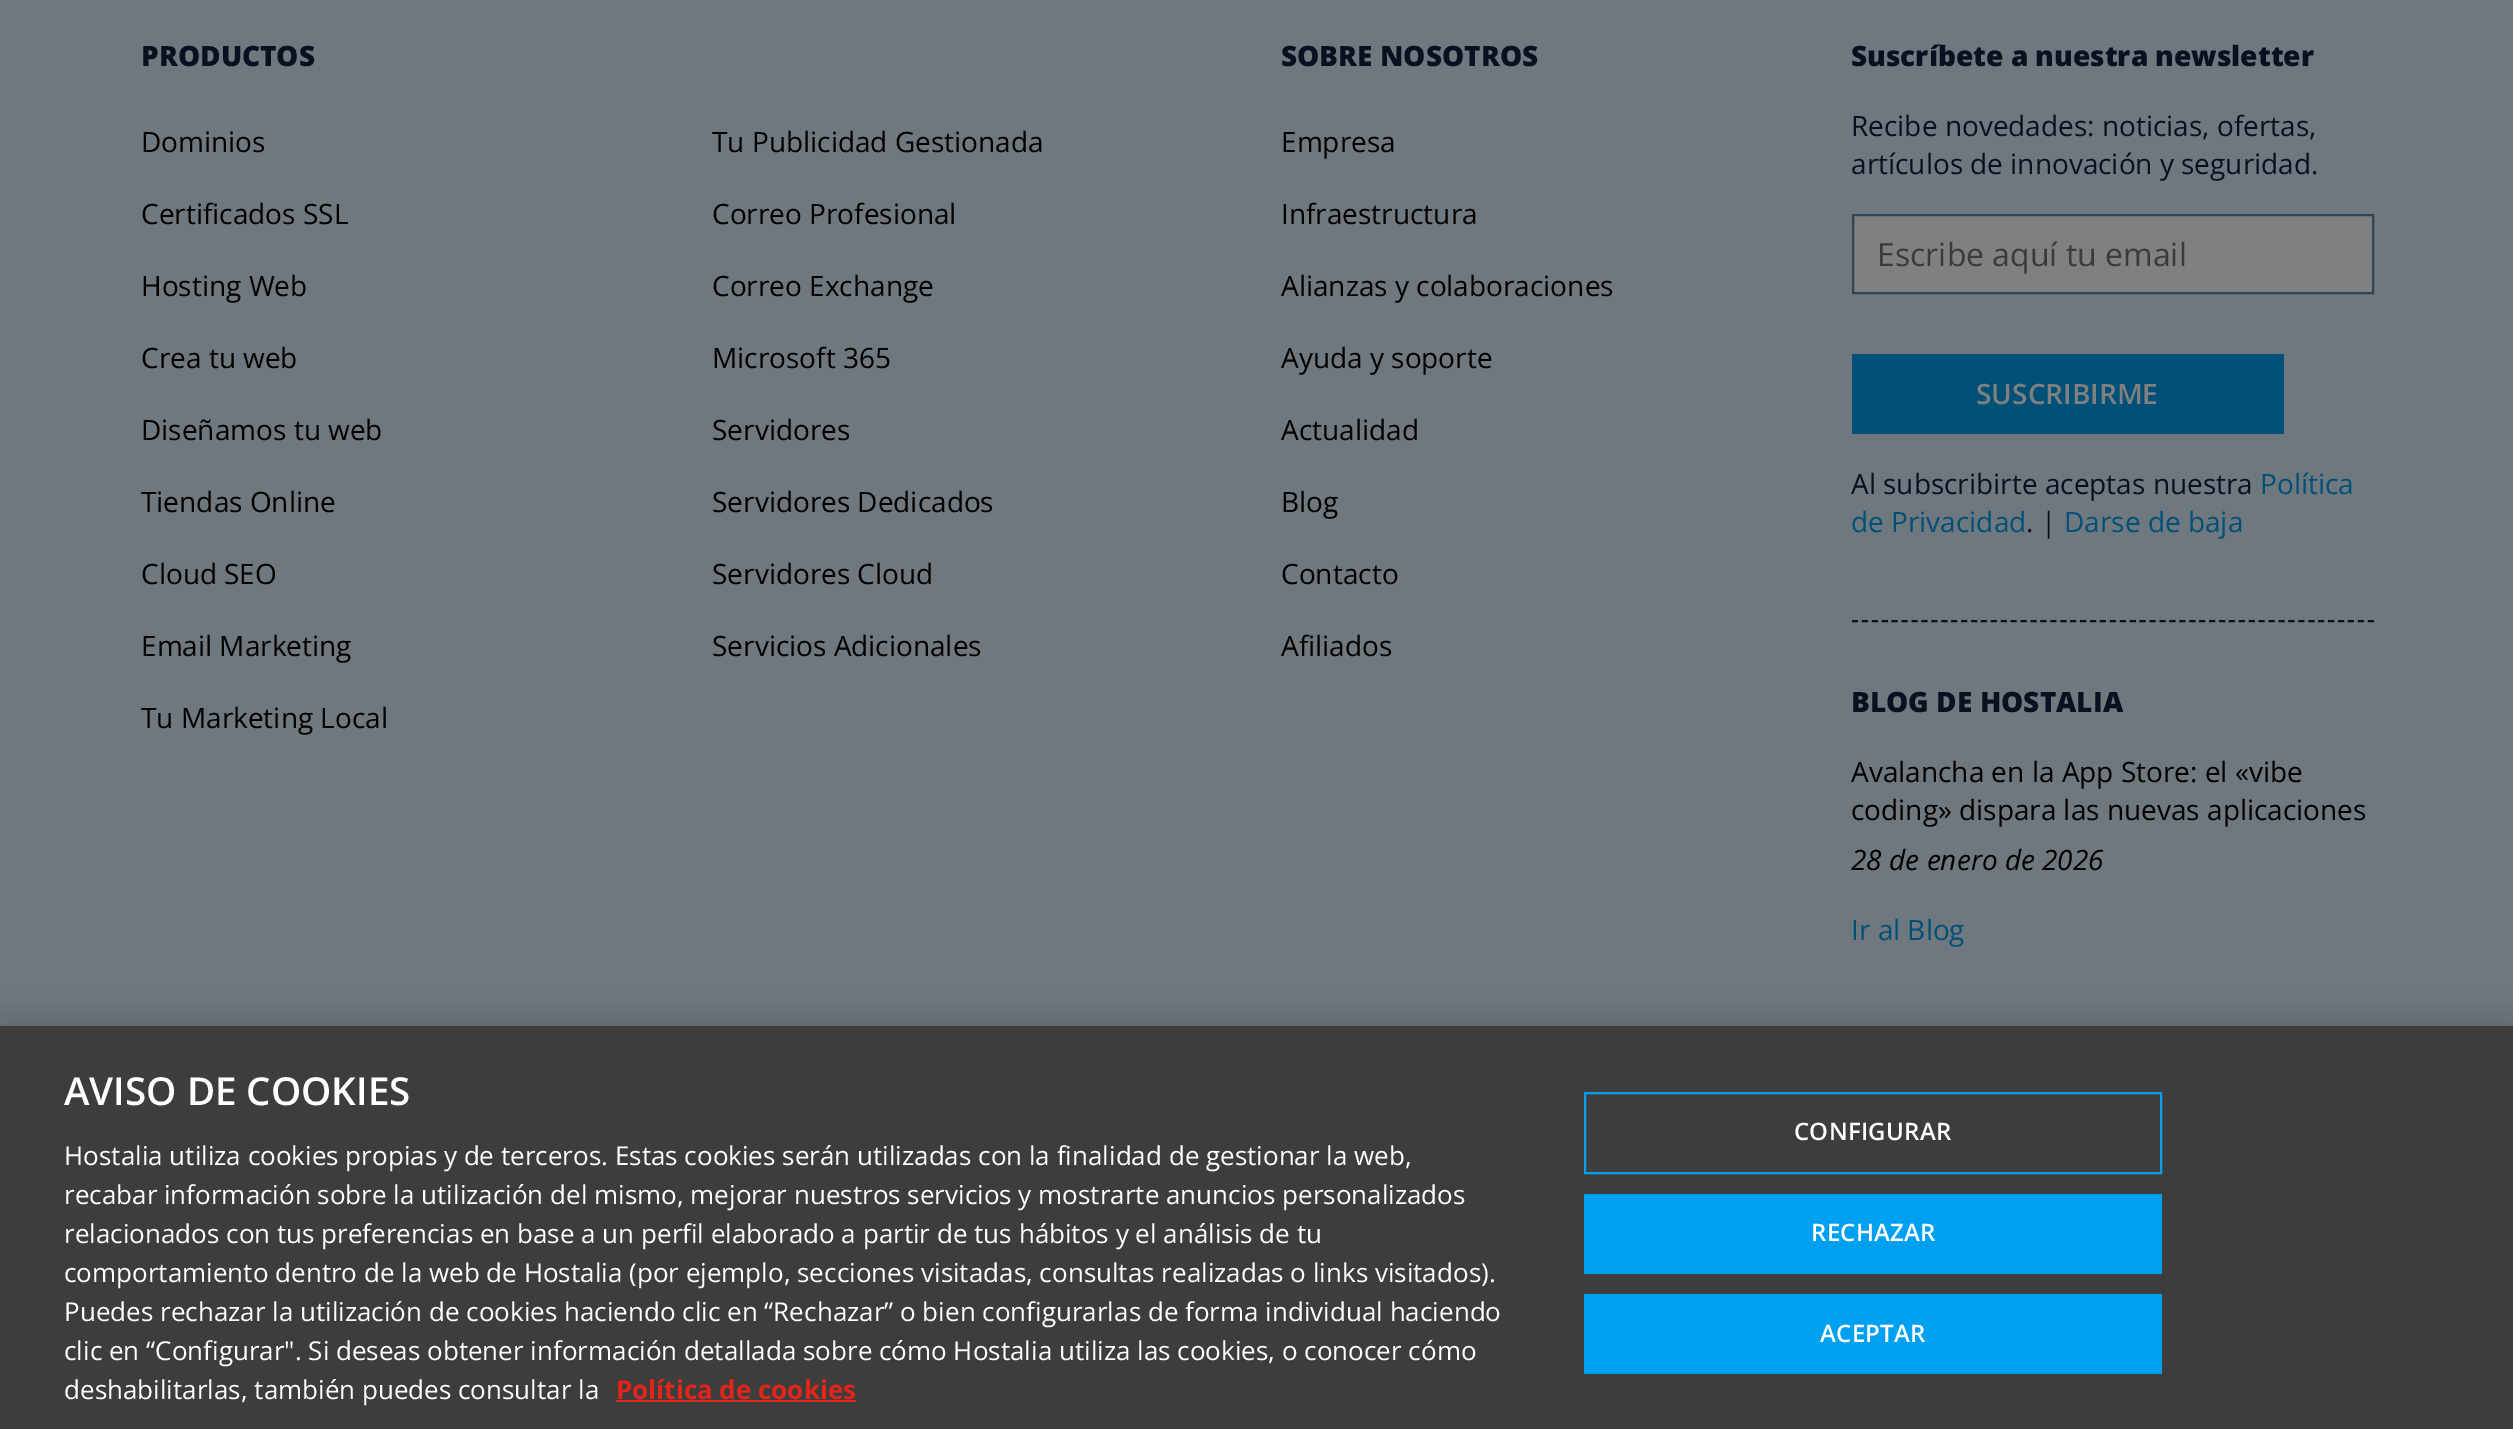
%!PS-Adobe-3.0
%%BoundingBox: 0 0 2513 1429
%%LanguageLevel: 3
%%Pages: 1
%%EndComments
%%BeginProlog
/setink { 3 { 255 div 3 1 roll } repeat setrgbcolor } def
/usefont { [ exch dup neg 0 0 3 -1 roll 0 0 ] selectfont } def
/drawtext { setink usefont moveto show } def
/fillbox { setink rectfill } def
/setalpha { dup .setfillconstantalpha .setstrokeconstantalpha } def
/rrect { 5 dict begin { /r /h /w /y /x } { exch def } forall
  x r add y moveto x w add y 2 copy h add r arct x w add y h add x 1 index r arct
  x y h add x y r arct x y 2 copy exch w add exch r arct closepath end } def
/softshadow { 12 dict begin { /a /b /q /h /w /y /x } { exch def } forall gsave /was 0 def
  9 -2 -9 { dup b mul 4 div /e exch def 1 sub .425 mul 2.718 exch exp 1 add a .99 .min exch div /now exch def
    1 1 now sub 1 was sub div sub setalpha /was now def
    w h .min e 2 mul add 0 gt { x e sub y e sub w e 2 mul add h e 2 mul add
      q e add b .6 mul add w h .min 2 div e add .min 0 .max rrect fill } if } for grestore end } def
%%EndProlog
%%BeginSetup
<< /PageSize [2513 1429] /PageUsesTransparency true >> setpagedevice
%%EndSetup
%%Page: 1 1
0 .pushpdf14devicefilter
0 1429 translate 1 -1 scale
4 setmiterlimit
0 0 2513 1429 111 120 126 fillbox
(PRODUCTOS) 141 66 /OpenSans-ExtraBold 28 7 17 32 drawtext
(Dominios) 141 152 /OpenSans-Regular 28 0 0 0 drawtext
(Tu Publicidad Gestionada) 712 152 /OpenSans-Regular 28 0 0 0 drawtext
(Certificados SSL) 141 224 /OpenSans-Regular 28 0 0 0 drawtext
(Correo Profesional) 712 224 /OpenSans-Regular 28 0 0 0 drawtext
(Hosting Web) 141 296 /OpenSans-Regular 28 0 0 0 drawtext
(Correo Exchange) 712 296 /OpenSans-Regular 28 0 0 0 drawtext
(Crea tu web) 141 368 /OpenSans-Regular 28 0 0 0 drawtext
(Microsoft 365) 712 368 /OpenSans-Regular 28 0 0 0 drawtext
(Diseñamos tu web) 141 440 /OpenSans-Regular 28 0 0 0 drawtext
(Servidores) 712 440 /OpenSans-Regular 28 0 0 0 drawtext
(Tiendas Online) 141 512 /OpenSans-Regular 28 0 0 0 drawtext
(Servidores Dedicados) 712 512 /OpenSans-Regular 28 0 0 0 drawtext
(Cloud SEO) 141 584 /OpenSans-Regular 28 0 0 0 drawtext
(Servidores Cloud) 712 584 /OpenSans-Regular 28 0 0 0 drawtext
(Email Marketing) 141 656 /OpenSans-Regular 28 0 0 0 drawtext
(Servicios Adicionales) 712 656 /OpenSans-Regular 28 0 0 0 drawtext
(Tu Marketing Local) 141 728 /OpenSans-Regular 28 0 0 0 drawtext
(SOBRE NOSOTROS) 1281 66 /OpenSans-ExtraBold 28 7 17 32 drawtext
(Empresa) 1281 152 /OpenSans-Regular 28 0 0 0 drawtext
(Infraestructura) 1281 224 /OpenSans-Regular 28 0 0 0 drawtext
(Alianzas y colaboraciones) 1281 296 /OpenSans-Regular 28 0 0 0 drawtext
(Ayuda y soporte) 1281 368 /OpenSans-Regular 28 0 0 0 drawtext
(Actualidad) 1281 440 /OpenSans-Regular 28 0 0 0 drawtext
(Blog) 1281 512 /OpenSans-Regular 28 0 0 0 drawtext
(Contacto) 1281 584 /OpenSans-Regular 28 0 0 0 drawtext
(Afiliados) 1281 656 /OpenSans-Regular 28 0 0 0 drawtext
(Suscríbete a nuestra newsletter) 1851 66 /OpenSans-ExtraBold 28 7 17 32 drawtext
(Recibe novedades: noticias, ofertas,) 1851 136 /OpenSans-Regular 28 7 17 32 drawtext
(artículos de innovación y seguridad.) 1851 174 /OpenSans-Regular 28 7 17 32 drawtext
128 128 128 setink
1853 215 moveto 2373 215 lineto 2373 293 lineto 1853 293 lineto closepath gsave fill grestore
49 68 86 setink
2 setlinewidth
stroke
(Escribe aquí tu email) 1877 266 /OpenSans-Regular 32 59 59 59 drawtext
1852 354 432 80 0 80 120 fillbox
(SUSCRIBIRME) 1976 404 /OpenSans-SemiBold 28 128 128 128 drawtext
(Al subscribirte aceptas nuestra) 1851 494 /OpenSans-Regular 28 7 17 32 drawtext
(Política) 2260 494 /OpenSans-Regular 28 0 80 120 drawtext
(de Privacidad) 1851 532 /OpenSans-Regular 28 0 80 120 drawtext
(. |) 2026 532 /OpenSans-Regular 28 7 17 32 drawtext
(Darse de baja) 2064 532 /OpenSans-Regular 28 0 80 120 drawtext
7 17 32 setink
[6 3.92] 0 setdash
1852 621 moveto 2374 621 lineto stroke
(BLOG DE HOSTALIA) 1851 712 /OpenSans-ExtraBold 28 7 17 32 drawtext
(Avalancha en la App Store: el «vibe) 1851 782 /OpenSans-Regular 28 0 0 0 drawtext
(coding» dispara las nuevas aplicaciones) 1851 820 /OpenSans-Regular 28 0 0 0 drawtext
(28 de enero de 2026) 1851 870 /OpenSans-Italic 28 0 0 0 drawtext
(Ir al Blog) 1851 940 /OpenSans-Regular 28 0 80 120 drawtext
0 0 0 setink
0 1026 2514 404 0 18 0.2 softshadow
0 1026 2513 403 61 61 61 fillbox
(AVISO DE COOKIES) 64 1105 /OpenSans-SemiBold 38.5 255 255 255 drawtext
(Hostalia utiliza cookies propias y de terceros. Estas cookies serán utilizadas con la finalidad de gestionar la web,) 64 1165 /OpenSans-Regular 26.02 255 255 255 drawtext
(recabar información sobre la utilización del mismo, mejorar nuestros servicios y mostrarte anuncios personalizados) 64 1204 /OpenSans-Regular 26.02 255 255 255 drawtext
(relacionados con tus preferencias en base a un perfil elaborado a partir de tus hábitos y el análisis de tu) 64 1243 /OpenSans-Regular 26.02 255 255 255 drawtext
(comportamiento dentro de la web de Hostalia \(por ejemplo, secciones visitadas, consultas realizadas o links visitados\).) 64 1282 /OpenSans-Regular 26.02 255 255 255 drawtext
(Puedes rechazar la utilización de cookies haciendo clic en “Rechazar” o bien configurarlas de forma individual haciendo) 64 1321 /OpenSans-Regular 26.02 255 255 255 drawtext
(clic en “Configurar". Si deseas obtener información detallada sobre cómo Hostalia utiliza las cookies, o conocer cómo) 64 1360 /OpenSans-Regular 26.02 255 255 255 drawtext
(deshabilitarlas, también puedes consultar la) 64 1399 /OpenSans-Regular 26.02 255 255 255 drawtext
(Política de cookies) 616 1399 /OpenSans-Bold 26.02 225 37 27 drawtext
616 1400 240 2 225 37 27 fillbox
0 160 240 setink
[] 0 setdash
1585 1093 576 80 rectstroke
/OpenSans-SemiBold 24 usefont
255 255 255 setink
1794 1140 moveto 0.25 0 (CONFIGURAR) ashow
1584 1194 578 80 0 160 240 fillbox
255 255 255 setink
1811 1241 moveto 0.25 0 (RECHAZAR) ashow
1584 1294 578 80 0 160 240 fillbox
255 255 255 setink
1820 1342 moveto 0.25 0 (ACEPTAR) ashow
.poppdf14devicefilter showpage
%%EOF
